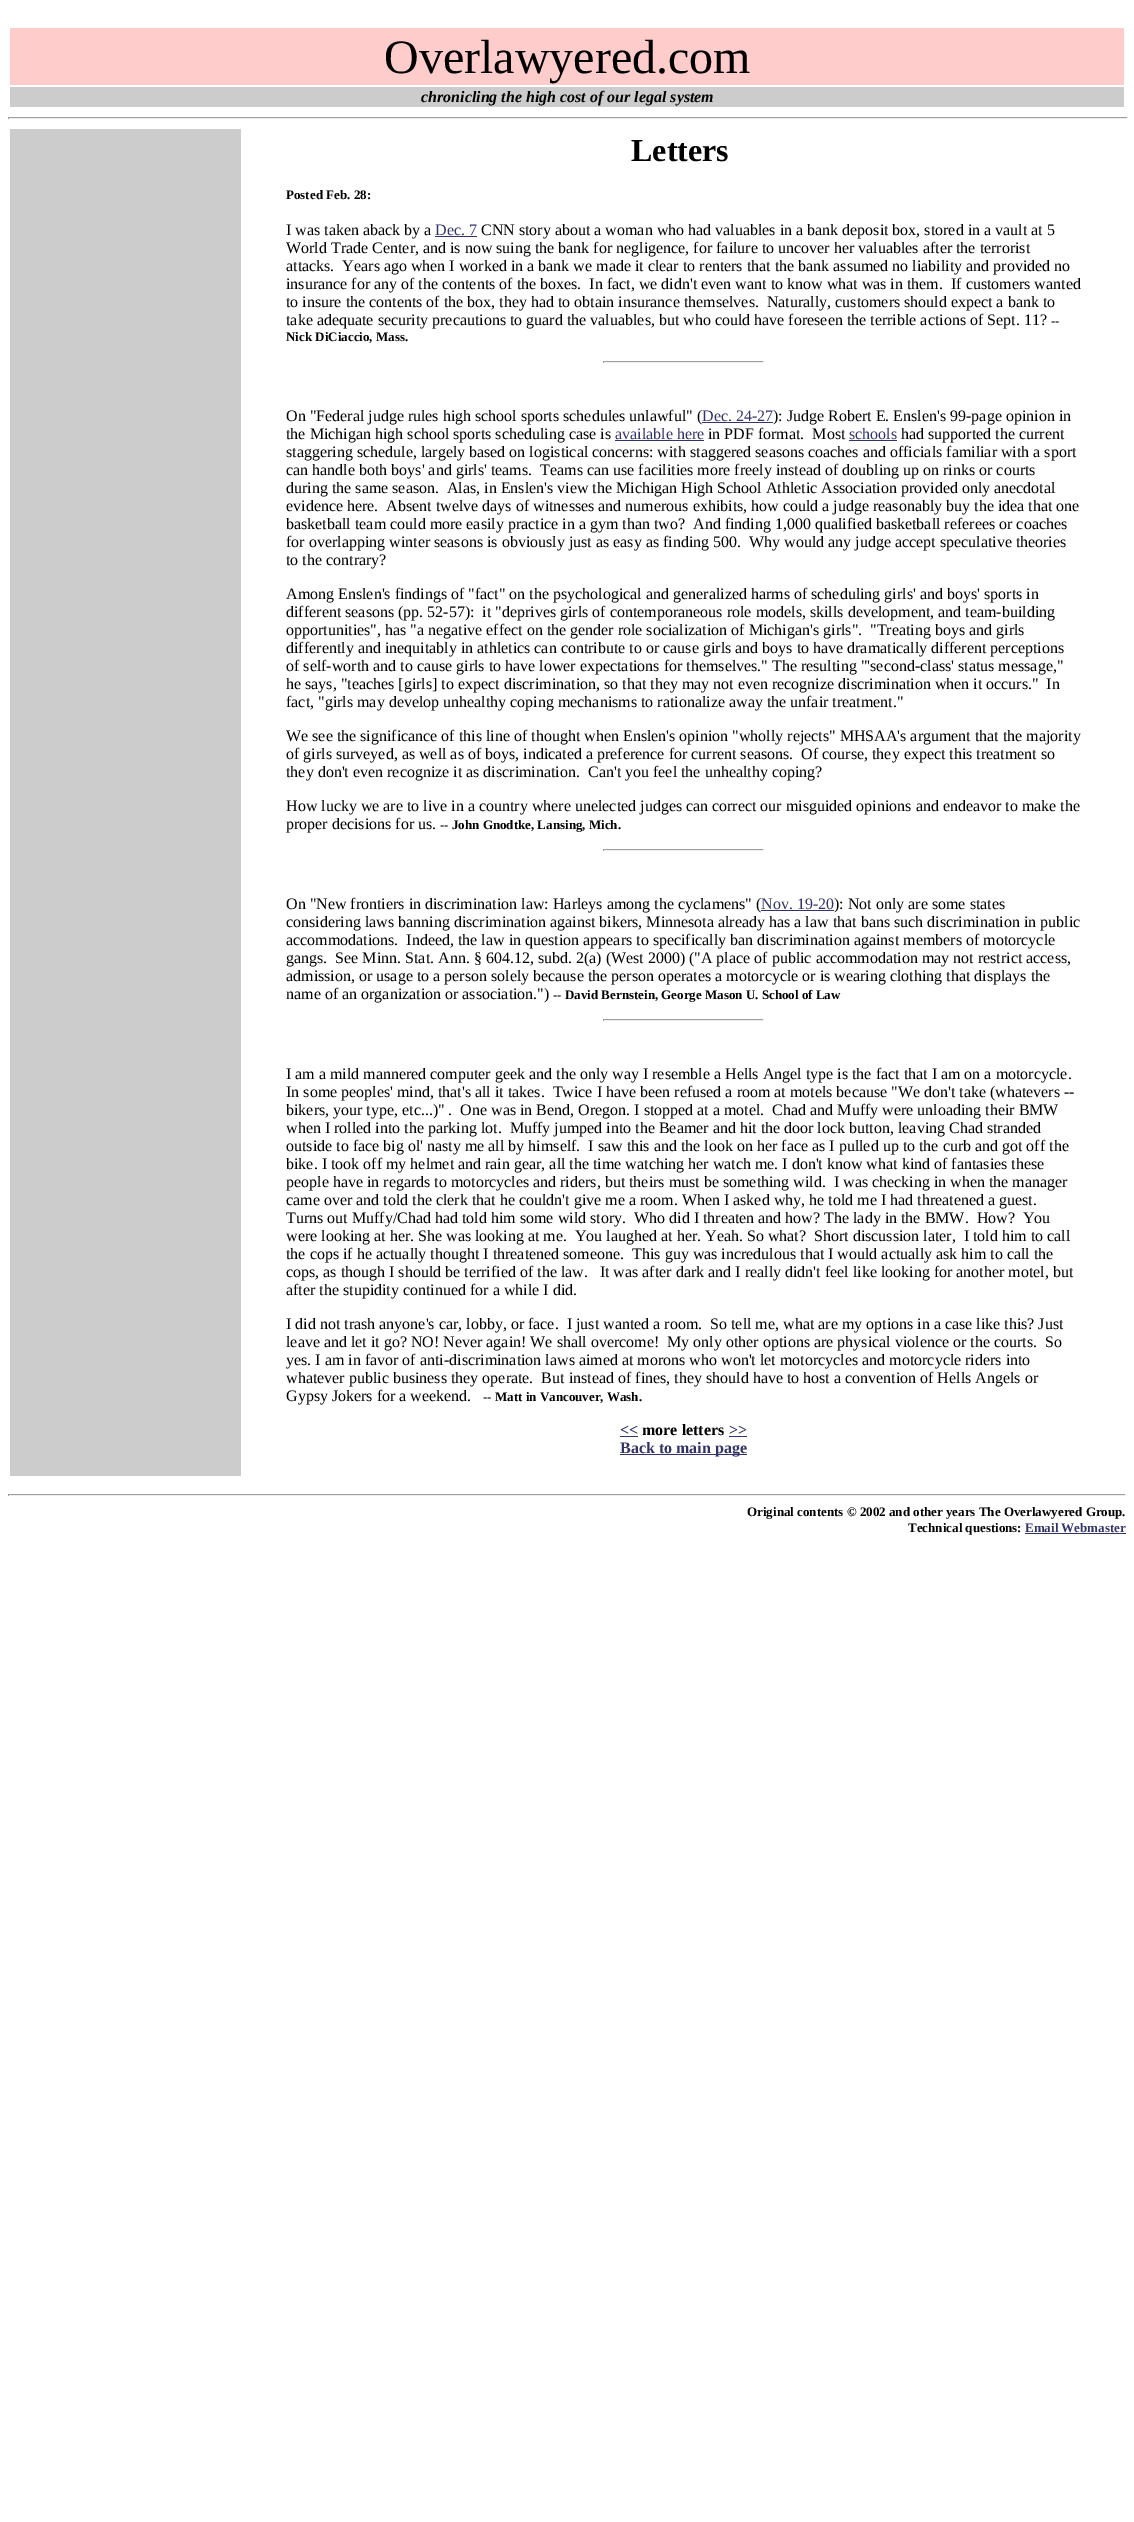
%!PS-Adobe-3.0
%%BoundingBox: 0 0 1134 2522
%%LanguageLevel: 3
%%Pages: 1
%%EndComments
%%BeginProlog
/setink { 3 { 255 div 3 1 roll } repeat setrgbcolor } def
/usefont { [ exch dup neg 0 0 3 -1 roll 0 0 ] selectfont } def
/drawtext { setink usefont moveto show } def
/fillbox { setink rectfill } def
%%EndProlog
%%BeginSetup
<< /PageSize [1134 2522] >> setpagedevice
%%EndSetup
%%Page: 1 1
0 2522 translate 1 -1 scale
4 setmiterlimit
0 0 1134 2522 255 255 255 fillbox
10 28 1114 57 255 204 204 fillbox
(Overlawyered.com) 384 73 /LiberationSerif-Regular 48 0 0 0 drawtext
10 87 1114 20 204 204 204 fillbox
(chronicling the high cost of our legal system) 421 102 /LiberationSerif-BoldItalic 16 0 0 0 drawtext
8 117 1120 1 159 159 159 fillbox
1127 117 1 2 238 238 238 fillbox
8 118 1120 1 238 238 238 fillbox
8 117 1 2 159 159 159 fillbox
10 129 231 1347 204 204 204 fillbox
(Letters) 631 161 /LiberationSerif-Bold 32 0 0 0 drawtext
(Posted Feb. 28:) 286 199 /LiberationSerif-Bold 13 0 0 0 drawtext
(I was taken aback by a) 286 235 /LiberationSerif-Regular 16 0 0 0 drawtext
(Dec. 7) 435 235 /LiberationSerif-Regular 16 51 51 102 drawtext
435 236 42 1 51 51 102 fillbox
(CNN story about a woman who had valuables in a bank deposit box, stored in a vault at 5) 481 235 /LiberationSerif-Regular 16 0 0 0 drawtext
(World Trade Center, and is now suing the bank for negligence, for failure to uncover her valuables after the terrorist) 286 253 /LiberationSerif-Regular 16 0 0 0 drawtext
(attacks.  Years ago when I worked in a bank we made it clear to renters that the bank assumed no liability and provided no) 286 271 /LiberationSerif-Regular 16 0 0 0 drawtext
(insurance for any of the contents of the boxes.  In fact, we didn't even want to know what was in them.  If customers wanted) 286 289 /LiberationSerif-Regular 16 0 0 0 drawtext
(to insure the contents of the box, they had to obtain insurance themselves.  Naturally, customers should expect a bank to) 286 307 /LiberationSerif-Regular 16 0 0 0 drawtext
(take adequate security precautions to guard the valuables, but who could have foreseen the terrible actions of Sept. 11?) 286 325 /LiberationSerif-Regular 16 0 0 0 drawtext
(--) 1051 325 /LiberationSerif-Bold 13 0 0 0 drawtext
(Nick DiCiaccio, Mass.) 286 341 /LiberationSerif-Bold 13 0 0 0 drawtext
603 361 161 1 159 159 159 fillbox
763 361 1 2 238 238 238 fillbox
603 362 161 1 238 238 238 fillbox
603 361 1 2 159 159 159 fillbox
(On "Federal judge rules high school sports schedules unlawful" \() 286 421 /LiberationSerif-Regular 16 0 0 0 drawtext
(Dec. 24-27) 702 421 /LiberationSerif-Regular 16 51 51 102 drawtext
702 422 71 1 51 51 102 fillbox
(\): Judge Robert E. Enslen's 99-page opinion in) 773 421 /LiberationSerif-Regular 16 0 0 0 drawtext
(the Michigan high school sports scheduling case is) 286 439 /LiberationSerif-Regular 16 0 0 0 drawtext
(available here) 615 439 /LiberationSerif-Regular 16 51 51 102 drawtext
615 440 89 1 51 51 102 fillbox
(in PDF format.  Most) 708 439 /LiberationSerif-Regular 16 0 0 0 drawtext
(schools) 849 439 /LiberationSerif-Regular 16 51 51 102 drawtext
849 440 48 1 51 51 102 fillbox
(had supported the current) 901 439 /LiberationSerif-Regular 16 0 0 0 drawtext
(staggering schedule, largely based on logistical concerns: with staggered seasons coaches and officials familiar with a sport) 286 457 /LiberationSerif-Regular 16 0 0 0 drawtext
(can handle both boys' and girls' teams.  Teams can use facilities more freely instead of doubling up on rinks or courts) 286 475 /LiberationSerif-Regular 16 0 0 0 drawtext
(during the same season.  Alas, in Enslen's view the Michigan High School Athletic Association provided only anecdotal) 286 493 /LiberationSerif-Regular 16 0 0 0 drawtext
(evidence here.  Absent twelve days of witnesses and numerous exhibits, how could a judge reasonably buy the idea that one) 286 511 /LiberationSerif-Regular 16 0 0 0 drawtext
(basketball team could more easily practice in a gym than two?  And finding 1,000 qualified basketball referees or coaches) 286 529 /LiberationSerif-Regular 16 0 0 0 drawtext
(for overlapping winter seasons is obviously just as easy as finding 500.  Why would any judge accept speculative theories) 286 547 /LiberationSerif-Regular 16 0 0 0 drawtext
(to the contrary?) 286 565 /LiberationSerif-Regular 16 0 0 0 drawtext
(Among Enslen's findings of "fact" on the psychological and generalized harms of scheduling girls' and boys' sports in) 286 599 /LiberationSerif-Regular 16 0 0 0 drawtext
(different seasons \(pp. 52-57\):  it "deprives girls of contemporaneous role models, skills development, and team-building) 286 617 /LiberationSerif-Regular 16 0 0 0 drawtext
(opportunities", has "a negative effect on the gender role socialization of Michigan's girls".  "Treating boys and girls) 286 635 /LiberationSerif-Regular 16 0 0 0 drawtext
(differently and inequitably in athletics can contribute to or cause girls and boys to have dramatically different perceptions) 286 653 /LiberationSerif-Regular 16 0 0 0 drawtext
(of self-worth and to cause girls to have lower expectations for themselves." The resulting "'second-class' status message,") 286 671 /LiberationSerif-Regular 16 0 0 0 drawtext
(he says, "teaches [girls] to expect discrimination, so that they may not even recognize discrimination when it occurs."  In) 286 689 /LiberationSerif-Regular 16 0 0 0 drawtext
(fact, "girls may develop unhealthy coping mechanisms to rationalize away the unfair treatment.") 286 707 /LiberationSerif-Regular 16 0 0 0 drawtext
(We see the significance of this line of thought when Enslen's opinion "wholly rejects" MHSAA's argument that the majority) 286 741 /LiberationSerif-Regular 16 0 0 0 drawtext
(of girls surveyed, as well as of boys, indicated a preference for current seasons.  Of course, they expect this treatment so) 286 759 /LiberationSerif-Regular 16 0 0 0 drawtext
(they don't even recognize it as discrimination.  Can't you feel the unhealthy coping?) 286 777 /LiberationSerif-Regular 16 0 0 0 drawtext
(How lucky we are to live in a country where unelected judges can correct our misguided opinions and endeavor to make the) 286 811 /LiberationSerif-Regular 16 0 0 0 drawtext
(proper decisions for us.) 286 829 /LiberationSerif-Regular 16 0 0 0 drawtext
(-- John Gnodtke, Lansing, Mich.) 440 829 /LiberationSerif-Bold 13 0 0 0 drawtext
603 849 161 1 159 159 159 fillbox
763 849 1 2 238 238 238 fillbox
603 850 161 1 238 238 238 fillbox
603 849 1 2 159 159 159 fillbox
(On "New frontiers in discrimination law: Harleys among the cyclamens" \() 286 909 /LiberationSerif-Regular 16 0 0 0 drawtext
(Nov. 19-20) 761 909 /LiberationSerif-Regular 16 51 51 102 drawtext
761 910 73 1 51 51 102 fillbox
(\): Not only are some states) 834 909 /LiberationSerif-Regular 16 0 0 0 drawtext
(considering laws banning discrimination against bikers, Minnesota already has a law that bans such discrimination in public) 286 927 /LiberationSerif-Regular 16 0 0 0 drawtext
(accommodations.  Indeed, the law in question appears to specifically ban discrimination against members of motorcycle) 286 945 /LiberationSerif-Regular 16 0 0 0 drawtext
(gangs.  See Minn. Stat. Ann. § 604.12, subd. 2\(a\) \(West 2000\) \("A place of public accommodation may not restrict access,) 286 963 /LiberationSerif-Regular 16 0 0 0 drawtext
(admission, or usage to a person solely because the person operates a motorcycle or is wearing clothing that displays the) 286 981 /LiberationSerif-Regular 16 0 0 0 drawtext
(name of an organization or association."\)) 286 999 /LiberationSerif-Regular 16 0 0 0 drawtext
(-- David Bernstein, George Mason U. School of Law) 553 999 /LiberationSerif-Bold 13 0 0 0 drawtext
603 1019 161 1 159 159 159 fillbox
763 1019 1 2 238 238 238 fillbox
603 1020 161 1 238 238 238 fillbox
603 1019 1 2 159 159 159 fillbox
(I am a mild mannered computer geek and the only way I resemble a Hells Angel type is the fact that I am on a motorcycle.) 286 1079 /LiberationSerif-Regular 16 0 0 0 drawtext
(In some peoples' mind, that's all it takes.  Twice I have been refused a room at motels because "We don't take \(whatevers --) 286 1097 /LiberationSerif-Regular 16 0 0 0 drawtext
(bikers, your type, etc...\)" .  One was in Bend, Oregon. I stopped at a motel.  Chad and Muffy were unloading their BMW) 286 1115 /LiberationSerif-Regular 16 0 0 0 drawtext
(when I rolled into the parking lot.  Muffy jumped into the Beamer and hit the door lock button, leaving Chad stranded) 286 1133 /LiberationSerif-Regular 16 0 0 0 drawtext
(outside to face big ol' nasty me all by himself.  I saw this and the look on her face as I pulled up to the curb and got off the) 286 1151 /LiberationSerif-Regular 16 0 0 0 drawtext
(bike. I took off my helmet and rain gear, all the time watching her watch me. I don't know what kind of fantasies these) 286 1169 /LiberationSerif-Regular 16 0 0 0 drawtext
(people have in regards to motorcycles and riders, but theirs must be something wild.  I was checking in when the manager) 286 1187 /LiberationSerif-Regular 16 0 0 0 drawtext
(came over and told the clerk that he couldn't give me a room. When I asked why, he told me I had threatened a guest.) 286 1205 /LiberationSerif-Regular 16 0 0 0 drawtext
(Turns out Muffy/Chad had told him some wild story.  Who did I threaten and how? The lady in the BMW.  How?  You) 286 1223 /LiberationSerif-Regular 16 0 0 0 drawtext
(were looking at her. She was looking at me.  You laughed at her. Yeah. So what?  Short discussion later,  I told him to call) 286 1241 /LiberationSerif-Regular 16 0 0 0 drawtext
(the cops if he actually thought I threatened someone.  This guy was incredulous that I would actually ask him to call the) 286 1259 /LiberationSerif-Regular 16 0 0 0 drawtext
(cops, as though I should be terrified of the law.   It was after dark and I really didn't feel like looking for another motel, but) 286 1277 /LiberationSerif-Regular 16 0 0 0 drawtext
(after the stupidity continued for a while I did.) 286 1295 /LiberationSerif-Regular 16 0 0 0 drawtext
(I did not trash anyone's car, lobby, or face.  I just wanted a room.  So tell me, what are my options in a case like this? Just) 286 1329 /LiberationSerif-Regular 16 0 0 0 drawtext
(leave and let it go? NO! Never again! We shall overcome!  My only other options are physical violence or the courts.  So) 286 1347 /LiberationSerif-Regular 16 0 0 0 drawtext
(yes. I am in favor of anti-discrimination laws aimed at morons who won't let motorcycles and motorcycle riders into) 286 1365 /LiberationSerif-Regular 16 0 0 0 drawtext
(whatever public business they operate.  But instead of fines, they should have to host a convention of Hells Angels or) 286 1383 /LiberationSerif-Regular 16 0 0 0 drawtext
(Gypsy Jokers for a weekend.) 286 1401 /LiberationSerif-Regular 16 0 0 0 drawtext
(-- Matt in Vancouver, Wash.) 483 1401 /LiberationSerif-Bold 13 0 0 0 drawtext
(<<) 620 1435 /LiberationSerif-Bold 16 51 51 102 drawtext
620 1436 18 1 51 51 102 fillbox
(more letters) 642 1435 /LiberationSerif-Bold 16 0 0 0 drawtext
(>>) 729 1435 /LiberationSerif-Bold 16 51 51 102 drawtext
729 1436 18 1 51 51 102 fillbox
620 1454 127 1 51 51 102 fillbox
(Back to main page) 620 1453 /LiberationSerif-Bold 16 51 51 102 drawtext
8 1494 1118 1 159 159 159 fillbox
1125 1494 1 2 238 238 238 fillbox
8 1495 1118 1 238 238 238 fillbox
8 1494 1 2 159 159 159 fillbox
(Original contents © 2002 and other years The Overlawyered Group.) 747 1516 /LiberationSerif-Bold 13 0 0 0 drawtext
(Technical questions:) 908 1532 /LiberationSerif-Bold 13 0 0 0 drawtext
(Email Webmaster) 1025 1532 /LiberationSerif-Bold 13 51 51 102 drawtext
1025 1533 101 1 51 51 102 fillbox
showpage
%%EOF
